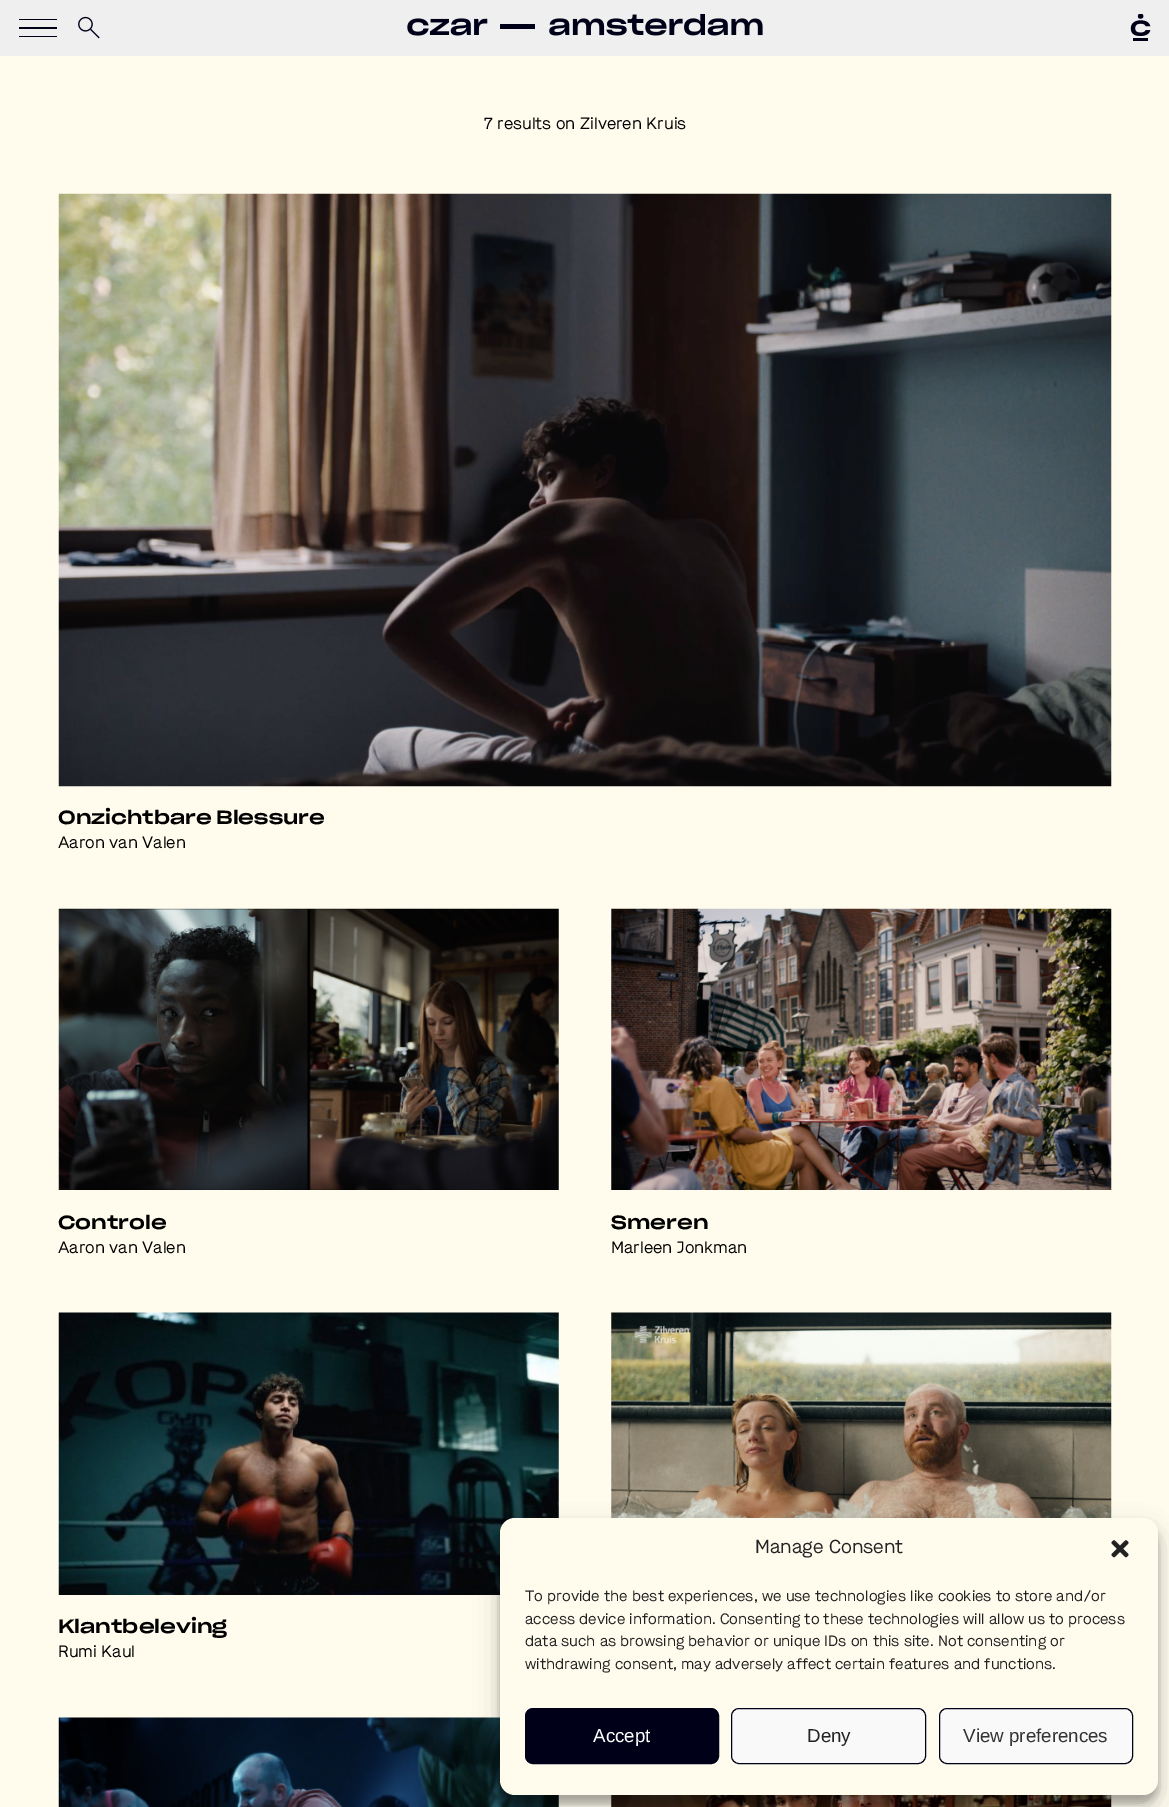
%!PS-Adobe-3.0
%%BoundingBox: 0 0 1169 1807
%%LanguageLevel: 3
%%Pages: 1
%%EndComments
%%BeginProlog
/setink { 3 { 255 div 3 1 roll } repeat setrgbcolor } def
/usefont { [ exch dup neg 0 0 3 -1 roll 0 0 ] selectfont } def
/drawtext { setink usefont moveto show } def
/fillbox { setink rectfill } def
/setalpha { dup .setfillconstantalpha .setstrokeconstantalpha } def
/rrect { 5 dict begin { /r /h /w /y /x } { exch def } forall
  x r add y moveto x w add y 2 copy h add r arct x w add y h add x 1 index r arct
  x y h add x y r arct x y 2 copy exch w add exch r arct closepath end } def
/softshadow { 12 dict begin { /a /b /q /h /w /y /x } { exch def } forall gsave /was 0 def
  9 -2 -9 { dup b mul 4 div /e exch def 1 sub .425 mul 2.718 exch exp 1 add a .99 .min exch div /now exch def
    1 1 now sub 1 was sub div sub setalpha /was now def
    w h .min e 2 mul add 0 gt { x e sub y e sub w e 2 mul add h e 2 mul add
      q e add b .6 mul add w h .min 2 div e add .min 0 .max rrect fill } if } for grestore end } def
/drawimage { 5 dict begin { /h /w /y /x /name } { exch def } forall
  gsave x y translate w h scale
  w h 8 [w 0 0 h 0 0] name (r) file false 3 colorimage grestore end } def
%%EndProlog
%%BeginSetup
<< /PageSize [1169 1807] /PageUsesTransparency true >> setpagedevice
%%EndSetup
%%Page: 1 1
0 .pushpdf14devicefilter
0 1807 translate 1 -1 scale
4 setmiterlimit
0 0 1169 1807 255 252 238 fillbox
0 0 1169 56 239 239 239 fillbox
19 19 38 1 0 0 25 fillbox
19 27 38 2 0 0 25 fillbox
19 36 38 1 0 0 25 fillbox
(assets/img1.rgb) 78 16 22 23 drawimage
(assets/img2.rgb) 407 14 356 22 drawimage
(assets/img3.rgb) 1130 14 21 27 drawimage
(7 results on) 484 129 /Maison-Regular 16.5 0 0 0 drawtext
(Zilveren Kruis) 580 129 /Maison-Regular 16.5 0 0 0 drawtext
(assets/img4.rgb) 58 193 1054 594 drawimage
(Onzichtbare Blessure) 58 824 /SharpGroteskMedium-Medium 18.75 0 0 0 drawtext
(Aaron van Valen) 58 848 /Maison-Regular 16.5 0 0 0 drawtext
(assets/img5.rgb) 58 908 501 282 drawimage
(Controle) 58 1229 /SharpGroteskMedium-Medium 18.75 0 0 0 drawtext
(Aaron van Valen) 58 1253 /Maison-Regular 16.5 0 0 0 drawtext
(assets/img6.rgb) 611 908 501 282 drawimage
(Smeren) 611 1229 /SharpGroteskMedium-Medium 18.75 0 0 0 drawtext
(Marleen Jonkman) 611 1253 /Maison-Regular 16.5 0 0 0 drawtext
(assets/img7.rgb) 611 1312 501 206 drawimage
(assets/img8.rgb) 58 1312 501 283 drawimage
(Klantbeleving) 58 1633 /SharpGroteskMedium-Medium 18.75 0 0 0 drawtext
(Rumi Kaul) 58 1657 /Maison-Regular 16.5 0 0 0 drawtext
(assets/img9.rgb) 58 1717 501 90 drawimage
(assets/img10.rgb) 611 1795 501 12 drawimage
500 1525 658 278 15 4 0.23 softshadow
500 1530 658 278 15 12.5 0.19 softshadow
255 252 238 setink
500 1518 658 277 15 rrect fill
(Manage Consent) 755 1553 /Maison-Regular 18.75 34 34 34 drawtext
(assets/img11.rgb) 1111 1540 18 18 drawimage
(To provide the best experiences, we use technologies like cookies to store and/or) 525 1601 /Maison-Regular 15 34 34 34 drawtext
(access device information. Consenting to these technologies will allow us to process) 525 1624 /Maison-Regular 15 34 34 34 drawtext
(data such as browsing behavior or unique IDs on this site. Not consenting or) 525 1646 /Maison-Regular 15 34 34 34 drawtext
(withdrawing consent, may adversely affect certain features and functions.) 525 1669 /Maison-Regular 15 34 34 34 drawtext
0 0 25 setink
525.5 1708.5 193 55 7.5 rrect gsave fill grestore
stroke
(Accept) 593 1742 /LiberationSans-Regular 18.75 255 255 255 drawtext
249 249 249 setink
731.5 1708.5 194 55 7.5 rrect gsave fill grestore
0 0 25 setink
stroke
(Deny) 807 1742 /LiberationSans-Regular 18.75 34 34 34 drawtext
249 249 249 setink
939.5 1708.5 193 55 7.5 rrect gsave fill grestore
0 0 25 setink
stroke
(View preferences) 963 1742 /LiberationSans-Regular 18.75 51 51 51 drawtext
.poppdf14devicefilter showpage
%%EOF
